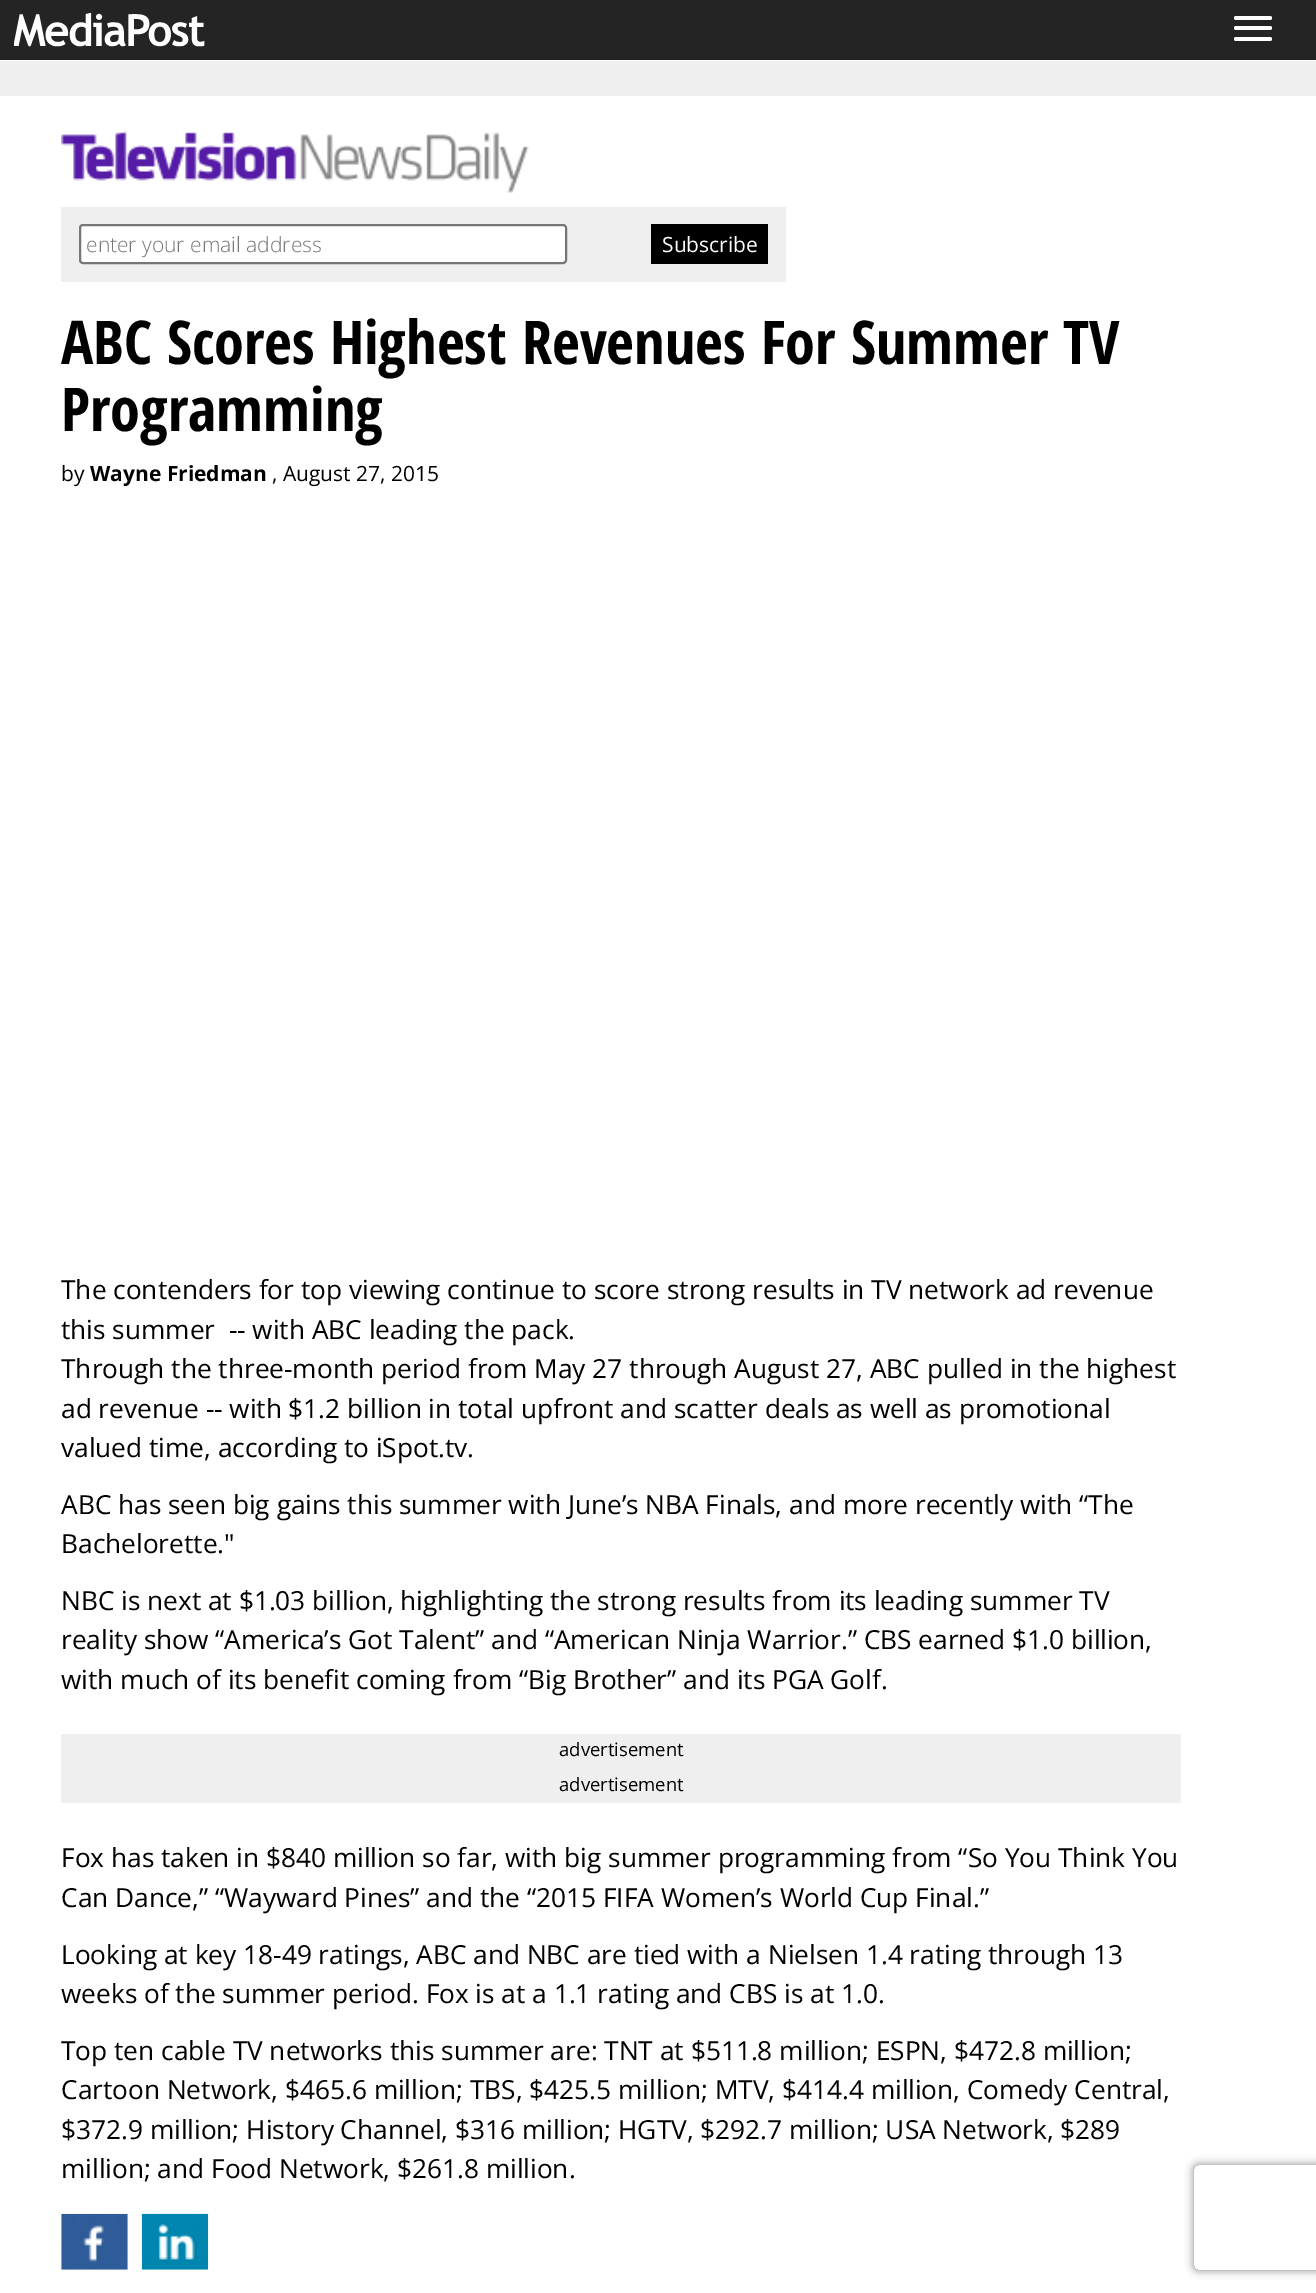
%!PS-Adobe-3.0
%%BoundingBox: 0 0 1316 2293
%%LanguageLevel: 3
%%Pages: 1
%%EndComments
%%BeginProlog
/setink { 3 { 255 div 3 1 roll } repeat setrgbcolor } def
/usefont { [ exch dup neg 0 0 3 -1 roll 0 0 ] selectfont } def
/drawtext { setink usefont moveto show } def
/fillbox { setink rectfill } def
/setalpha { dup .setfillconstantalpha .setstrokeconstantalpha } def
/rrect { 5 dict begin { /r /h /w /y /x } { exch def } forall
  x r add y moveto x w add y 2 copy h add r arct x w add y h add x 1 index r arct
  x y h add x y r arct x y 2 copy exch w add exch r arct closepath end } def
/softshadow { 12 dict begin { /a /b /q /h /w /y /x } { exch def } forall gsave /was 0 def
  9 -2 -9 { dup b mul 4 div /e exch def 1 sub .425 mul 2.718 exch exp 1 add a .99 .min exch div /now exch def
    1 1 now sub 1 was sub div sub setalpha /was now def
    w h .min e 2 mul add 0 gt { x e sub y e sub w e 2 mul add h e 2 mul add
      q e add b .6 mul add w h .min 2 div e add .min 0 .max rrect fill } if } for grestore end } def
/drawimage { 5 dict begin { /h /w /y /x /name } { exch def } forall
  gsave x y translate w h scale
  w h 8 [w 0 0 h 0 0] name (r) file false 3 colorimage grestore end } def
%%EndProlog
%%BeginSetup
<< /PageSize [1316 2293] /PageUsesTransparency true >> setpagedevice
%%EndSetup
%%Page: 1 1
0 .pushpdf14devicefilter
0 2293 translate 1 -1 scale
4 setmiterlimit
0 0 1316 2293 255 255 255 fillbox
0 0 1316 60 36 36 36 fillbox
(assets/img1.rgb) 14 12 191 35 drawimage
255 255 255 setink
1234 16 38 4 2 rrect fill
1234 26 38 4 2 rrect fill
1234 37 38 4 2 rrect fill
0 61 1316 35 239 239 239 fillbox
(assets/img2.rgb) 61 131 468 62 drawimage
61 207 725 75 239 239 239 fillbox
255 255 255 setink
80 225 486 38 3 rrect gsave fill grestore
118 118 118 setink
2 setlinewidth
stroke
(enter your email address) 86 252 /OpenSans-Light 21 117 117 117 drawtext
651 224 117 40 0 0 0 fillbox
(Subscribe) 662 252 /OpenSans-Regular 21 255 255 255 drawtext
gsave
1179 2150 moveto 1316 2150 lineto 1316 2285 lineto 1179 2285 lineto closepath 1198 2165 moveto 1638 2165 lineto 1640 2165 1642 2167 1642 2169 curveto 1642 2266 lineto 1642 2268 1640 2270 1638 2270 curveto 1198 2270 lineto 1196 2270 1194 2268 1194 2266 curveto 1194 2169 lineto 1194 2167 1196 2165 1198 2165 curveto closepath eoclip newpath
128 128 128 setink
1194 2165 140 105 4 4.5 1 softshadow
grestore
(ABC Scores Highest Revenues For Summer TV) 61 364 /OpenSansCondensed-Bold 60.4 0 0 0 drawtext
(Programming) 61 431 /OpenSansCondensed-Bold 60.4 0 0 0 drawtext
(by) 61 481 /OpenSans-Regular 21 0 0 0 drawtext
(Wayne Friedman) 90 481 /OpenSans-Bold 21 0 0 0 drawtext
(, August 27, 2015) 272 481 /OpenSans-Regular 21 0 0 0 drawtext
(The contenders for top viewing continue to score strong results in TV network ad revenue) 61 1299 /OpenSans-Regular 26.25 0 0 0 drawtext
(this summer  -- with ABC leading the pack.) 61 1339 /OpenSans-Regular 26.25 0 0 0 drawtext
(Through the three-month period from May 27 through August 27, ABC pulled in the highest) 61 1378 /OpenSans-Regular 26.25 0 0 0 drawtext
(ad revenue -- with $1.2 billion in total upfront and scatter deals as well as promotional) 61 1418 /OpenSans-Regular 26.25 0 0 0 drawtext
(valued time, according to iSpot.tv.) 61 1457 /OpenSans-Regular 26.25 0 0 0 drawtext
(ABC has seen big gains this summer with June’s NBA Finals, and more recently with “The) 61 1514 /OpenSans-Regular 26.25 0 0 0 drawtext
(Bachelorette.") 61 1553 /OpenSans-Regular 26.25 0 0 0 drawtext
(NBC is next at $1.03 billion, highlighting the strong results from its leading summer TV) 61 1610 /OpenSans-Regular 26.25 0 0 0 drawtext
(reality show “America’s Got Talent” and “American Ninja Warrior.” CBS earned $1.0 billion,) 61 1649 /OpenSans-Regular 26.25 0 0 0 drawtext
(with much of its benefit coming from “Big Brother” and its PGA Golf.) 61 1689 /OpenSans-Regular 26.25 0 0 0 drawtext
61 1734 1120 69 239 239 239 fillbox
(advertisement) 559 1756 /OpenSans-Regular 18.5 0 0 0 drawtext
(advertisement) 559 1791 /OpenSans-Regular 18.5 0 0 0 drawtext
(Fox has taken in $840 million so far, with big summer programming from “So You Think You) 61 1867 /OpenSans-Regular 26.25 0 0 0 drawtext
(Can Dance,” “Wayward Pines” and the “2015 FIFA Women’s World Cup Final.”) 61 1907 /OpenSans-Regular 26.25 0 0 0 drawtext
(Looking at key 18-49 ratings, ABC and NBC are tied with a Nielsen 1.4 rating through 13) 61 1964 /OpenSans-Regular 26.25 0 0 0 drawtext
(weeks of the summer period. Fox is at a 1.1 rating and CBS is at 1.0.) 61 2003 /OpenSans-Regular 26.25 0 0 0 drawtext
(Top ten cable TV networks this summer are: TNT at $511.8 million; ESPN, $472.8 million;) 61 2060 /OpenSans-Regular 26.25 0 0 0 drawtext
(Cartoon Network, $465.6 million; TBS, $425.5 million; MTV, $414.4 million, Comedy Central,) 61 2099 /OpenSans-Regular 26.25 0 0 0 drawtext
($372.9 million; History Channel, $316 million; HGTV, $292.7 million; USA Network, $289) 61 2139 /OpenSans-Regular 26.25 0 0 0 drawtext
(million; and Food Network, $261.8 million.) 61 2178 /OpenSans-Regular 26.25 0 0 0 drawtext
(assets/img3.rgb) 61 2213 67 57 drawimage
(assets/img4.rgb) 141 2213 68 57 drawimage
.poppdf14devicefilter showpage
%%EOF
